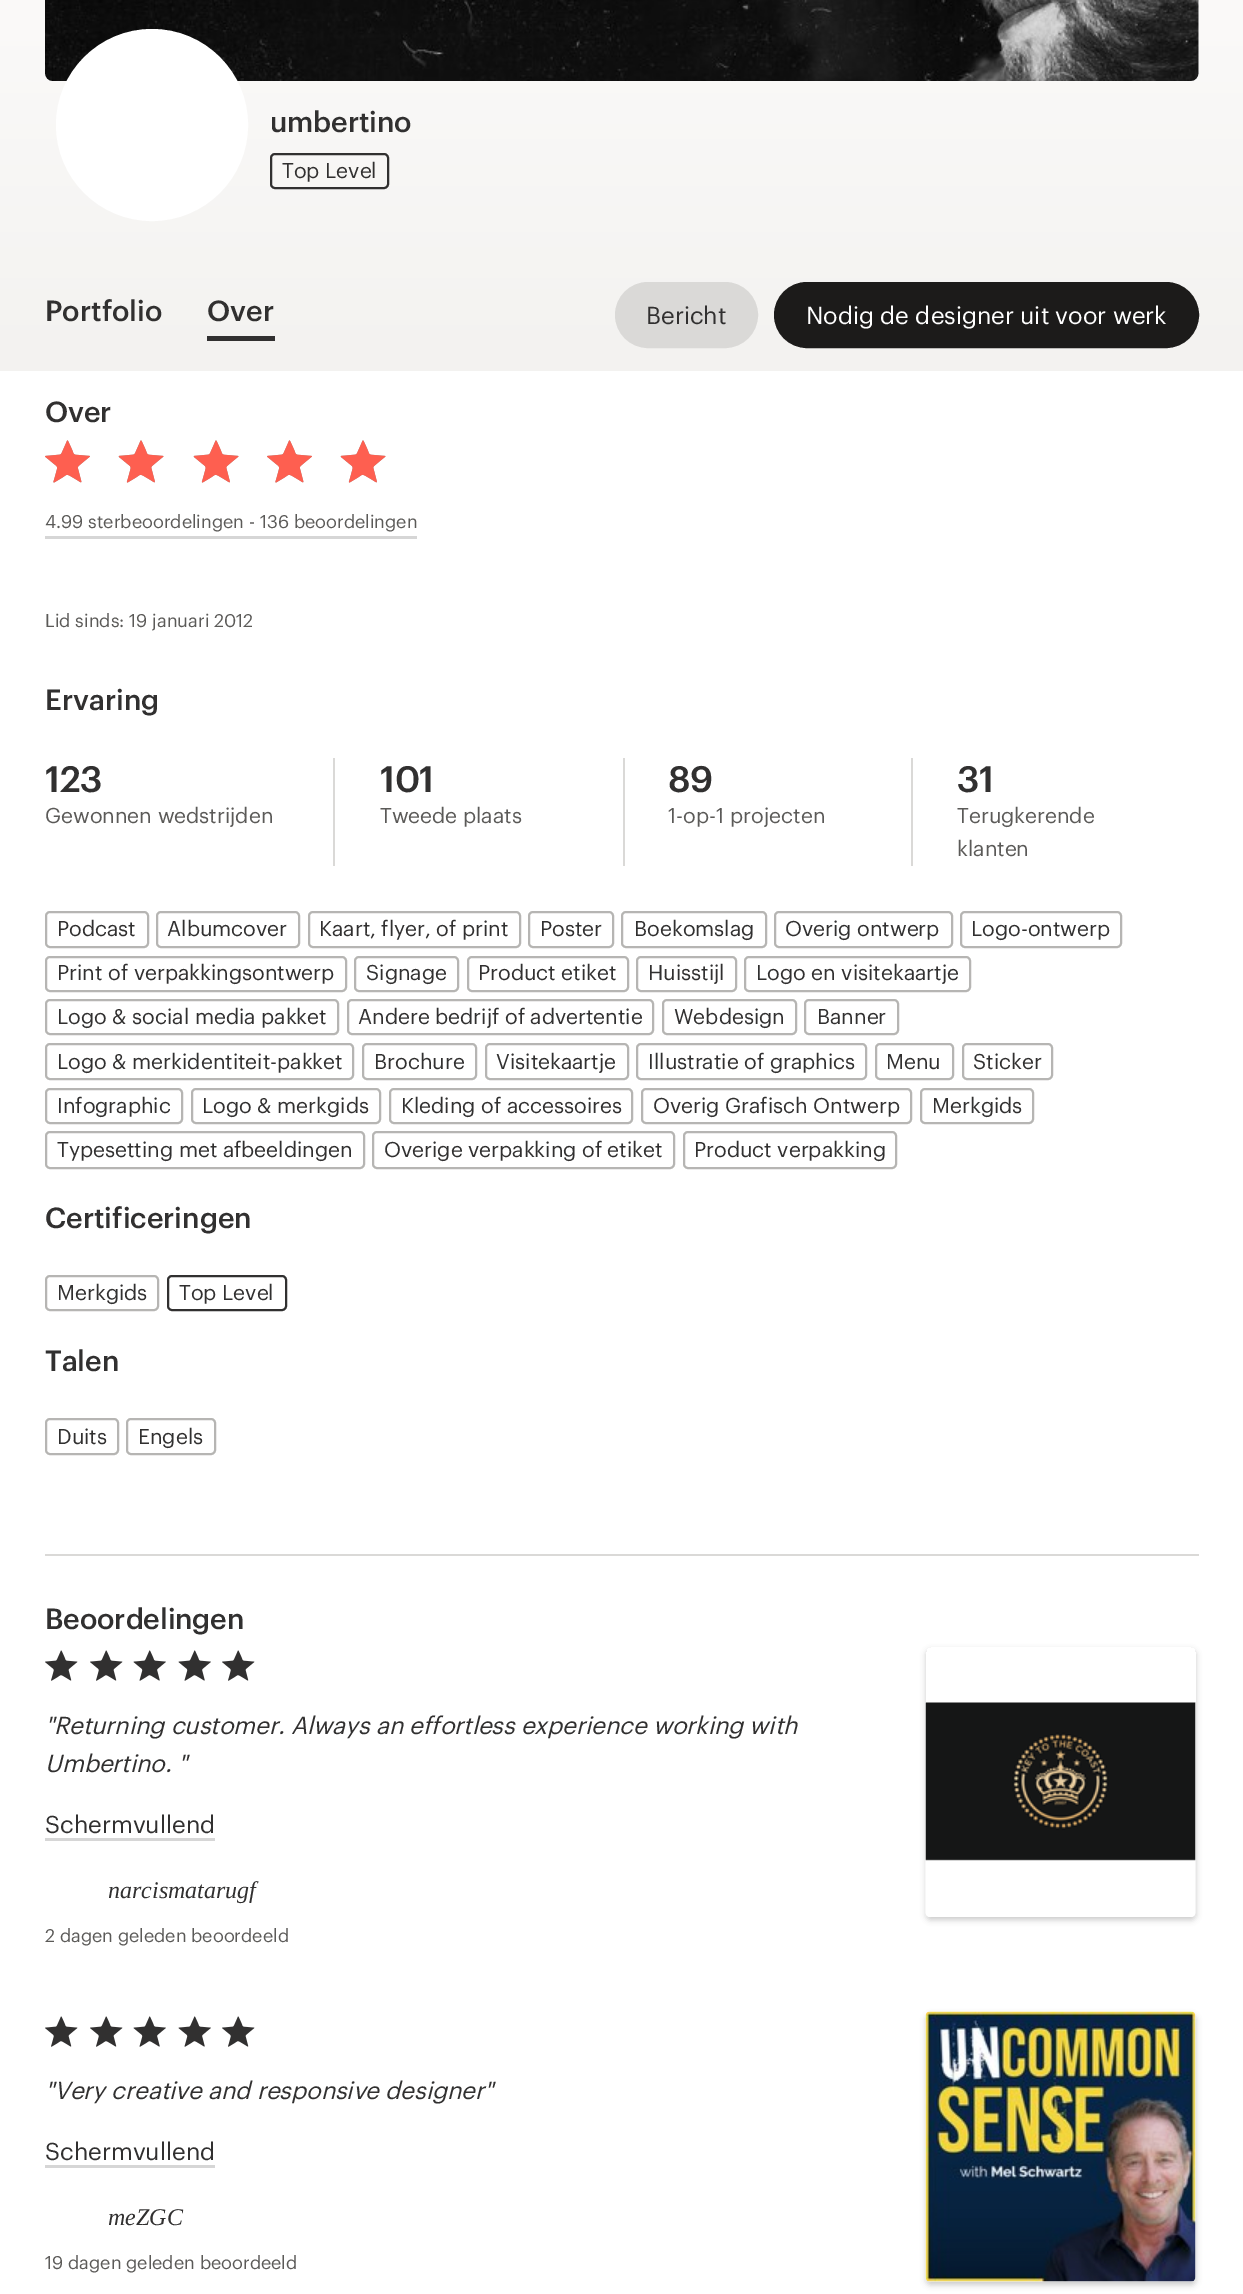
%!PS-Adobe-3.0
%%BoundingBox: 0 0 1243 2294
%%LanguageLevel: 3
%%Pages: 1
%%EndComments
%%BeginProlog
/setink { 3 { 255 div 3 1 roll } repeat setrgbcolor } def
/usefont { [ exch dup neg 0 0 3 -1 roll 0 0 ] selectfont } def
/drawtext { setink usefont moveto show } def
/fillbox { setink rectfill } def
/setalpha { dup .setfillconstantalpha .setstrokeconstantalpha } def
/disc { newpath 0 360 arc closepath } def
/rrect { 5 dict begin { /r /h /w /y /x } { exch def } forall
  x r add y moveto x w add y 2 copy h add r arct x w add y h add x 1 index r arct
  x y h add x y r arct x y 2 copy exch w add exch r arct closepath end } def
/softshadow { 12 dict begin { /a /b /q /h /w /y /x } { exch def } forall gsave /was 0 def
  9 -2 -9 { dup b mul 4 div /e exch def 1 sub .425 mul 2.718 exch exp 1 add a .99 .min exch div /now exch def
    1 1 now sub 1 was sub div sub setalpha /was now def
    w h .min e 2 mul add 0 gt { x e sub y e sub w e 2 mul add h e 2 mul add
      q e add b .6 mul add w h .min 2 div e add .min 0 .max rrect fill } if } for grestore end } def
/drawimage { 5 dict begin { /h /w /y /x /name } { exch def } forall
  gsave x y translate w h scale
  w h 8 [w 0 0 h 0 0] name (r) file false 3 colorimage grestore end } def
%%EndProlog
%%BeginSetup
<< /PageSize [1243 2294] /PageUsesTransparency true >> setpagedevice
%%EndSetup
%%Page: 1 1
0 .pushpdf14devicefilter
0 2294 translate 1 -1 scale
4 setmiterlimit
0 0 1243 2294 255 255 255 fillbox
gsave 0 0 moveto 1243 0 lineto 1243 371 lineto 0 371 lineto closepath clip newpath
<< /ShadingType 2 /ColorSpace /DeviceRGB /Coords [622 -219 622 371] /Extend [true true] /Function << /FunctionType 2 /Domain [0 1] /C0 [1 1 1] /C1 [0.953 0.949 0.941] /N 1 >> >> shfill grestore
45 -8 1154 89 8 rrect fill
(assets/img1.rgb) 45 0 1154 81 drawimage
152 125 94.5 disc gsave fill grestore
3 setlinewidth
stroke
/Graphik-Medium 28.5 usefont
49 48 48 setink
270 132 moveto -0.1 0 (umbertino) ashow
2 setlinewidth
271 154 117 34 4 rrect stroke
(Top Level) 282 178 /Graphik-Regular 21 49 48 48 drawtext
(Portfolio) 45 321 /Graphik-Medium 28.5 49 48 48 drawtext
(Over) 207 321 /Graphik-Medium 28.5 49 48 48 drawtext
207 336 68 5 49 48 48 fillbox
218 217 215 setink
616 283 141 64 32 rrect gsave fill grestore
stroke
(Bericht) 646 324 /Graphik-Regular 24 49 48 48 drawtext
28 27 26 setink
775 283 423 64 32 rrect gsave fill grestore
stroke
(Nodig de designer uit voor werk) 806 324 /Graphik-Regular 24 255 255 255 drawtext
45 1554 1154 2 218 217 215 fillbox
/Graphik-Medium 28.5 usefont
49 48 48 setink
45 422 moveto -0.1 0 (Over) ashow
(assets/img2.rgb) 45 440 45 43 drawimage
(assets/img3.rgb) 45 440 45 43 drawimage
(assets/img4.rgb) 118 440 46 43 drawimage
(assets/img5.rgb) 119 440 45 43 drawimage
(assets/img4.rgb) 193 440 46 43 drawimage
(assets/img5.rgb) 194 440 45 43 drawimage
(assets/img2.rgb) 267 440 45 43 drawimage
(assets/img3.rgb) 267 440 45 43 drawimage
(assets/img4.rgb) 340 440 46 43 drawimage
(assets/img5.rgb) 341 440 45 43 drawimage
45 536 372 3 214 214 214 fillbox
(4.99 sterbeoordelingen - 136 beoordelingen) 45 528 /Graphik-Regular 18 91 90 88 drawtext
(Lid sinds: 19 januari 2012) 45 627 /Graphik-Regular 18 91 90 88 drawtext
(Ervaring) 45 710 /Graphik-Medium 28.5 49 48 48 drawtext
/Graphik-Medium 36 usefont
45 792 moveto -0.5 0 (123) ashow
(Gewonnen wedstrijden) 45 823 /Graphik-Regular 21 91 90 88 drawtext
333 758 2 108 218 217 215 fillbox
/Graphik-Medium 36 usefont
49 48 48 setink
380 792 moveto -0.5 0 (101) ashow
(Tweede plaats) 380 823 /Graphik-Regular 21 91 90 88 drawtext
623 758 2 108 218 217 215 fillbox
/Graphik-Medium 36 usefont
49 48 48 setink
668 792 moveto -0.5 0 (89) ashow
(1-op-1 projecten) 668 823 /Graphik-Regular 21 91 90 88 drawtext
911 758 2 108 218 217 215 fillbox
/Graphik-Medium 36 usefont
49 48 48 setink
957 792 moveto -0.5 0 (31) ashow
(Terugkerende) 957 823 /Graphik-Regular 21 91 90 88 drawtext
(klanten) 957 856 /Graphik-Regular 21 91 90 88 drawtext
182 181 179 setink
46 912 102 35 4 rrect stroke
(Podcast) 57 936 /Graphik-Regular 21 49 48 48 drawtext
182 181 179 setink
157 912 142 35 4 rrect stroke
(Albumcover) 167 936 /Graphik-Regular 21 49 48 48 drawtext
182 181 179 setink
309 912 211 35 4 rrect stroke
(Kaart, flyer, of print) 319 936 /Graphik-Regular 21 49 48 48 drawtext
182 181 179 setink
529 912 84 35 4 rrect stroke
(Poster) 540 936 /Graphik-Regular 21 49 48 48 drawtext
182 181 179 setink
622 912 144 35 4 rrect stroke
(Boekomslag) 634 936 /Graphik-Regular 21 49 48 48 drawtext
182 181 179 setink
775 912 177 35 4 rrect stroke
(Overig ontwerp) 785 936 /Graphik-Regular 21 49 48 48 drawtext
182 181 179 setink
961 912 160 35 4 rrect stroke
(Logo-ontwerp) 971 936 /Graphik-Regular 21 49 48 48 drawtext
182 181 179 setink
46 957 300 34 4 rrect stroke
(Print of verpakkingsontwerp) 57 980 /Graphik-Regular 21 49 48 48 drawtext
182 181 179 setink
355 957 103 34 4 rrect stroke
(Signage) 366 980 /Graphik-Regular 21 49 48 48 drawtext
182 181 179 setink
468 957 160 34 4 rrect stroke
(Product etiket) 478 980 /Graphik-Regular 21 49 48 48 drawtext
182 181 179 setink
637 957 99 34 4 rrect stroke
(Huisstijl) 648 980 /Graphik-Regular 21 49 48 48 drawtext
182 181 179 setink
745 957 225 34 4 rrect stroke
(Logo en visitekaartje) 756 980 /Graphik-Regular 21 49 48 48 drawtext
182 181 179 setink
46 1000 292 34 4 rrect stroke
(Logo & social media pakket) 57 1024 /Graphik-Regular 21 49 48 48 drawtext
182 181 179 setink
348 1000 305 34 4 rrect stroke
(Andere bedrijf of advertentie) 358 1024 /Graphik-Regular 21 49 48 48 drawtext
182 181 179 setink
663 1000 133 34 4 rrect stroke
(Webdesign) 674 1024 /Graphik-Regular 21 49 48 48 drawtext
182 181 179 setink
805 1000 93 34 4 rrect stroke
(Banner) 817 1024 /Graphik-Regular 21 49 48 48 drawtext
182 181 179 setink
46 1044 307 35 4 rrect stroke
(Logo & merkidentiteit-pakket) 57 1069 /Graphik-Regular 21 49 48 48 drawtext
182 181 179 setink
363 1044 113 35 4 rrect stroke
(Brochure) 374 1069 /Graphik-Regular 21 49 48 48 drawtext
182 181 179 setink
486 1044 142 35 4 rrect stroke
(Visitekaartje) 496 1069 /Graphik-Regular 21 49 48 48 drawtext
182 181 179 setink
637 1044 229 35 4 rrect stroke
(Illustratie of graphics) 648 1069 /Graphik-Regular 21 49 48 48 drawtext
182 181 179 setink
876 1044 77 35 4 rrect stroke
(Menu) 886 1069 /Graphik-Regular 21 49 48 48 drawtext
182 181 179 setink
963 1044 89 35 4 rrect stroke
(Sticker) 973 1069 /Graphik-Regular 21 49 48 48 drawtext
182 181 179 setink
46 1089 136 34 4 rrect stroke
(Infographic) 57 1113 /Graphik-Regular 21 49 48 48 drawtext
182 181 179 setink
192 1089 188 34 4 rrect stroke
(Logo & merkgids) 202 1113 /Graphik-Regular 21 49 48 48 drawtext
182 181 179 setink
390 1089 242 34 4 rrect stroke
(Kleding of accessoires) 401 1113 /Graphik-Regular 21 49 48 48 drawtext
182 181 179 setink
642 1089 269 34 4 rrect stroke
(Overig Grafisch Ontwerp) 653 1113 /Graphik-Regular 21 49 48 48 drawtext
182 181 179 setink
921 1089 112 34 4 rrect stroke
(Merkgids) 932 1113 /Graphik-Regular 21 49 48 48 drawtext
182 181 179 setink
46 1132 318 36 4 rrect stroke
(Typesetting met afbeeldingen) 57 1157 /Graphik-Regular 21 49 48 48 drawtext
182 181 179 setink
373 1132 301 36 4 rrect stroke
(Overige verpakking of etiket) 384 1157 /Graphik-Regular 21 49 48 48 drawtext
182 181 179 setink
684 1132 212 36 4 rrect stroke
(Product verpakking) 694 1157 /Graphik-Regular 21 49 48 48 drawtext
(Certificeringen) 45 1228 /Graphik-Medium 28.5 49 48 48 drawtext
182 181 179 setink
46 1276 112 34 4 rrect stroke
(Merkgids) 57 1300 /Graphik-Regular 21 49 48 48 drawtext
168 1276 118 34 4 rrect stroke
(Top Level) 179 1300 /Graphik-Regular 21 49 48 48 drawtext
(Talen) 45 1371 /Graphik-Medium 28.5 49 48 48 drawtext
182 181 179 setink
46 1419 72 35 4 rrect stroke
(Duits) 57 1444 /Graphik-Regular 21 49 48 48 drawtext
182 181 179 setink
127 1419 88 35 4 rrect stroke
(Engels) 138 1444 /Graphik-Regular 21 49 48 48 drawtext
/Graphik-Medium 28.5 usefont
45 1629 moveto -0.1 0 (Beoordelingen) ashow
(assets/img6.rgb) 45 1650 33 31 drawimage
(assets/img6.rgb) 90 1650 33 31 drawimage
(assets/img7.rgb) 133 1650 33 31 drawimage
(assets/img7.rgb) 178 1650 33 31 drawimage
(assets/img6.rgb) 222 1650 33 31 drawimage
("Returning customer. Always an effortless experience working with) 45 1734 /Graphik-Italic 24 49 48 48 drawtext
(Umbertino. ") 45 1772 /Graphik-Italic 24 49 48 48 drawtext
(Schermvullend) 45 1833 /Graphik-Regular 24 49 48 48 drawtext
45 1838 170 3 214 214 214 fillbox
(narcismatarugf) 108 1898 /LiberationSerif-Italic 24 49 48 48 drawtext
(2 dagen geleden beoordeeld) 45 1942 /Graphik-Regular 18 91 90 88 drawtext
gsave
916 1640 moveto 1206 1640 lineto 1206 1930 lineto 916 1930 lineto closepath 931 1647 moveto 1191 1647 lineto 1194 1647 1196 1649 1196 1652 curveto 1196 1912 lineto 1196 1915 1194 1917 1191 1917 curveto 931 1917 lineto 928 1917 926 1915 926 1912 curveto 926 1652 lineto 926 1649 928 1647 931 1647 curveto closepath eoclip newpath
0 0 0 setink
926 1650 270 270 5 3 0.2 softshadow
grestore
(assets/img8.rgb) 925 1702 271 215 drawimage
(assets/img6.rgb) 45 2016 33 31 drawimage
(assets/img6.rgb) 90 2016 33 31 drawimage
(assets/img7.rgb) 133 2016 33 31 drawimage
(assets/img7.rgb) 178 2016 33 31 drawimage
(assets/img6.rgb) 222 2016 33 31 drawimage
("Very creative and responsive designer") 45 2099 /Graphik-Italic 24 49 48 48 drawtext
(Schermvullend) 45 2160 /Graphik-Regular 24 49 48 48 drawtext
45 2165 170 3 214 214 214 fillbox
(meZGC) 108 2225 /LiberationSerif-Italic 24 49 48 48 drawtext
(19 dagen geleden beoordeeld) 45 2269 /Graphik-Regular 18 91 90 88 drawtext
0 0 0 setink
926 2015 270 270 5 3 0.2 softshadow
(assets/img9.rgb) 925 2011 271 271 drawimage
.poppdf14devicefilter showpage
%%EOF
